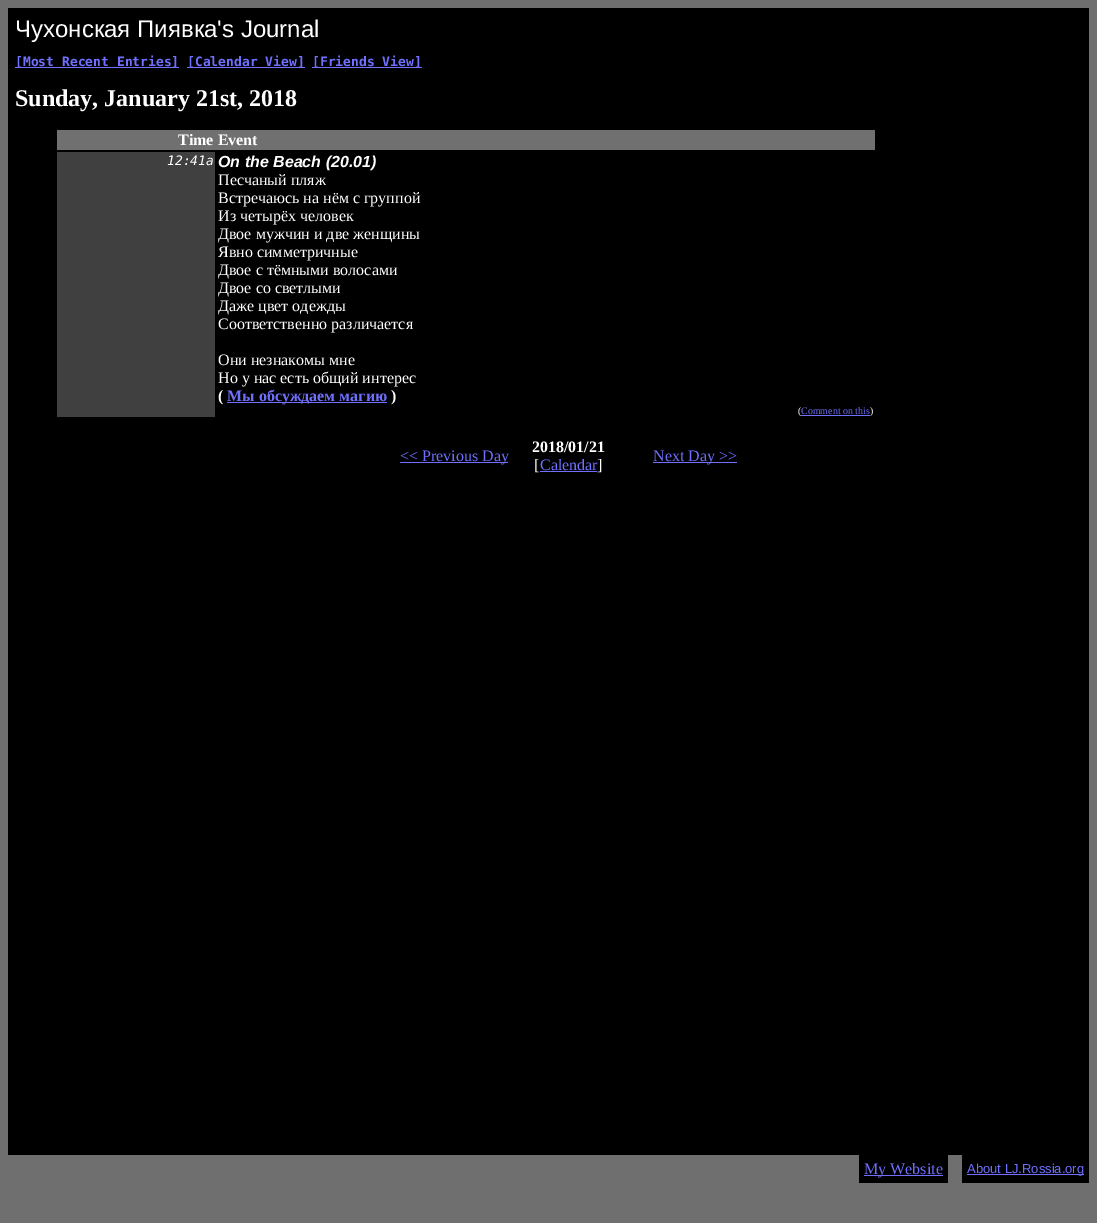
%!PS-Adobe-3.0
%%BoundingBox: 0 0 1097 1223
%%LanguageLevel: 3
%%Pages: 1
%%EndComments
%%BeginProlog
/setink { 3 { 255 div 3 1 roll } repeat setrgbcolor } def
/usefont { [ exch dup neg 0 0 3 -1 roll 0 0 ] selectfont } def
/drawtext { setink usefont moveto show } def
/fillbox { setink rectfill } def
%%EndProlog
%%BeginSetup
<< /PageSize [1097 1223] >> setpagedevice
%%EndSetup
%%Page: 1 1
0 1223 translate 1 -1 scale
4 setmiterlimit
0 0 1097 1223 111 111 111 fillbox
8 8 1081 1147 0 0 0 fillbox
(Чухонская Пиявка's Journal) 15 37 /LiberationSans-Regular 24 255 255 255 drawtext
15 67 164 1 112 112 255 fillbox
([Most Recent Entries]) 15 66 /DejaVuSansMono-Bold 13 112 112 255 drawtext
187 67 118 1 112 112 255 fillbox
([Calendar View]) 187 66 /DejaVuSansMono-Bold 13 112 112 255 drawtext
312 67 110 1 112 112 255 fillbox
([Friends View]) 312 66 /DejaVuSansMono-Bold 13 112 112 255 drawtext
(Sunday, January 21st, 2018) 15 106 /LiberationSerif-Bold 24 255 255 255 drawtext
57 130 818 20 112 112 112 fillbox
(Time Event) 178 145 /LiberationSerif-Bold 16 255 255 255 drawtext
57 152 158 265 64 64 64 fillbox
(12:41a) 167 165 /DejaVuSansMono-Italic 13 255 255 255 drawtext
(On the Beach \(20.01\)) 218 167 /LiberationSans-BoldItalic 16 255 255 255 drawtext
(Песчаный пляж) 218 185 /LiberationSerif-Regular 16 255 255 255 drawtext
(Встречаюсь на нём с группой) 218 203 /LiberationSerif-Regular 16 255 255 255 drawtext
(Из четырёх человек) 218 221 /LiberationSerif-Regular 16 255 255 255 drawtext
(Двое мужчин и две женщины) 218 239 /LiberationSerif-Regular 16 255 255 255 drawtext
(Явно симметричные) 218 257 /LiberationSerif-Regular 16 255 255 255 drawtext
(Двое с тёмными волосами) 218 275 /LiberationSerif-Regular 16 255 255 255 drawtext
(Двое со светлыми) 218 293 /LiberationSerif-Regular 16 255 255 255 drawtext
(Даже цвет одежды) 218 311 /LiberationSerif-Regular 16 255 255 255 drawtext
(Соответственно различается) 218 329 /LiberationSerif-Regular 16 255 255 255 drawtext
(Они незнакомы мне) 218 365 /LiberationSerif-Regular 16 255 255 255 drawtext
(Но у нас есть общий интерес) 218 383 /LiberationSerif-Regular 16 255 255 255 drawtext
(\() 218 401 /LiberationSerif-Bold 16 255 255 255 drawtext
227 402 160 1 112 112 255 fillbox
(Мы обсуждаем магию) 227 401 /LiberationSerif-Bold 16 112 112 255 drawtext
(\)) 391 401 /LiberationSerif-Bold 16 255 255 255 drawtext
(\() 798 414 /LiberationSerif-Regular 10 255 255 255 drawtext
801 415 69 1 112 112 255 fillbox
(Comment on this) 801 414 /LiberationSerif-Regular 10 112 112 255 drawtext
(\)) 870 414 /LiberationSerif-Regular 10 255 255 255 drawtext
400 462 108 1 112 112 255 fillbox
(<< Previous Day) 400 461 /LiberationSerif-Regular 16 112 112 255 drawtext
(2018/01/21) 532 452 /LiberationSerif-Bold 16 255 255 255 drawtext
([) 534 470 /LiberationSerif-Regular 16 255 255 255 drawtext
(Calendar) 540 470 /LiberationSerif-Regular 16 112 112 255 drawtext
540 471 57 1 112 112 255 fillbox
(]) 597 470 /LiberationSerif-Regular 16 255 255 255 drawtext
653 462 84 1 112 112 255 fillbox
(Next Day >>) 653 461 /LiberationSerif-Regular 16 112 112 255 drawtext
859 1155 230 28 0 0 0 fillbox
864 1175 79 1 112 112 255 fillbox
(My Website) 864 1174 /LiberationSerif-Regular 16 112 112 255 drawtext
948 1155 14 28 111 111 111 fillbox
967 1174 117 1 112 112 255 fillbox
(About LJ.Rossia.org) 967 1173 /LiberationSans-Regular 13 112 112 255 drawtext
showpage
%%EOF
